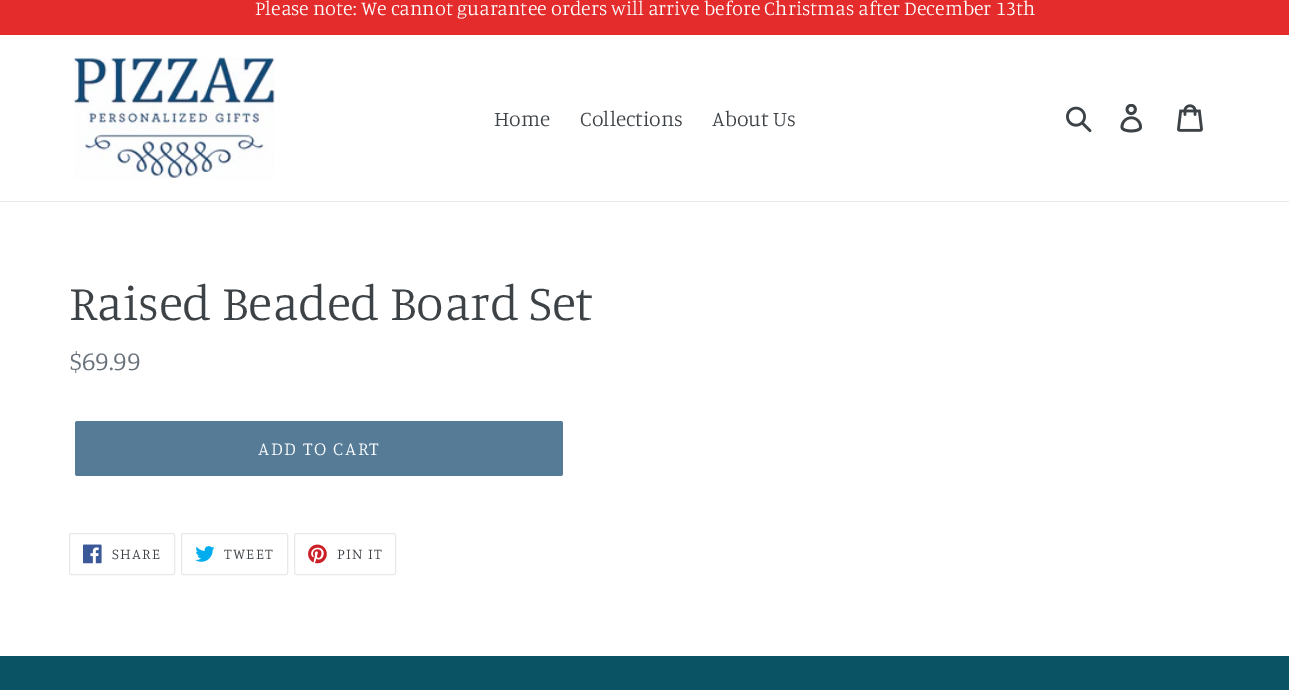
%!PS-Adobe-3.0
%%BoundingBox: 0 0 1289 690
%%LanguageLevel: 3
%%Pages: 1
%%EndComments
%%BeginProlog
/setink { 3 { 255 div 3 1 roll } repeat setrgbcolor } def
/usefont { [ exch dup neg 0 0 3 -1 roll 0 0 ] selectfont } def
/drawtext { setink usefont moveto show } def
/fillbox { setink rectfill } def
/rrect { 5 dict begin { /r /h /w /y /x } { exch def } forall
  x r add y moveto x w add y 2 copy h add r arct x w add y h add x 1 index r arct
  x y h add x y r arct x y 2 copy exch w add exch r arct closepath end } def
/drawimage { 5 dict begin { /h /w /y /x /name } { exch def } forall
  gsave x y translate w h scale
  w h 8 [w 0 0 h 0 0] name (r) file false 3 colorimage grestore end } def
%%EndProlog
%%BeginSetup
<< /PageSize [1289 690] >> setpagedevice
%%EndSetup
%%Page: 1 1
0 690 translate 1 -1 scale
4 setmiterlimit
0 0 1289 690 255 255 255 fillbox
0 0 1289 35 227 44 43 fillbox
(Please note: We cannot guarantee orders will arrive before Christmas after December 13th) 255 15 /Manuale-Light 20 255 255 255 drawtext
0 201 1289 1 232 233 235 fillbox
(assets/img1.rgb) 74 57 201 122 drawimage
(Home) 494 126 /Manuale-Light 21.25 61 66 70 drawtext
(Collections) 580 126 /Manuale-Light 21.25 61 66 70 drawtext
(About Us) 712 126 /Manuale-Light 21.25 61 66 70 drawtext
(assets/img2.rgb) 1066 106 26 27 drawimage
(assets/img3.rgb) 1120 104 22 29 drawimage
(assets/img4.rgb) 1177 104 26 28 drawimage
(Raised Beaded Board Set) 69 320 /Manuale-Light 50 61 66 70 drawtext
($69.99) 69 370 /Manuale-Light 26.5 105 114 123 drawtext
85 123 151 setink
75 421 488 55 2.5 rrect fill
/Manuale-Light 18.75 usefont
255 255 255 setink
258 455 moveto 1.5 0 (ADD TO CART) ashow
232 233 235 setink
69.5 533.5 105 41 2 rrect stroke
(assets/img5.rgb) 83 544 19 20 drawimage
/Manuale-Light 15 usefont
61 66 70 setink
112 559 moveto 1.25 0 (SHARE) ashow
232 233 235 setink
181.5 533.5 106 41 2 rrect stroke
(assets/img6.rgb) 195 546 20 16 drawimage
61 66 70 setink
224 559 moveto 1.25 0 (TWEET) ashow
232 233 235 setink
294.5 533.5 101 41 2 rrect stroke
(assets/img7.rgb) 308 544 19 20 drawimage
61 66 70 setink
337 559 moveto 1.25 0 (PIN IT) ashow
0 656 1289 34 9 83 101 fillbox
showpage
%%EOF
